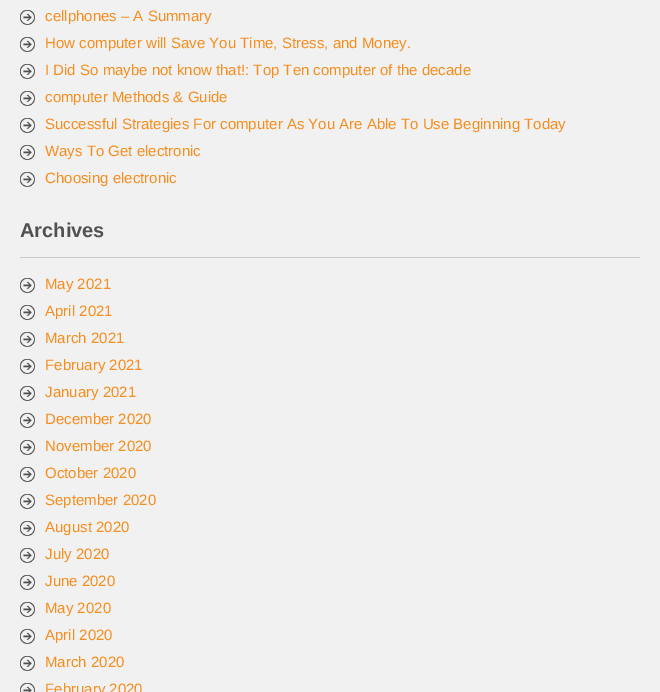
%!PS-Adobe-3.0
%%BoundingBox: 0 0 660 692
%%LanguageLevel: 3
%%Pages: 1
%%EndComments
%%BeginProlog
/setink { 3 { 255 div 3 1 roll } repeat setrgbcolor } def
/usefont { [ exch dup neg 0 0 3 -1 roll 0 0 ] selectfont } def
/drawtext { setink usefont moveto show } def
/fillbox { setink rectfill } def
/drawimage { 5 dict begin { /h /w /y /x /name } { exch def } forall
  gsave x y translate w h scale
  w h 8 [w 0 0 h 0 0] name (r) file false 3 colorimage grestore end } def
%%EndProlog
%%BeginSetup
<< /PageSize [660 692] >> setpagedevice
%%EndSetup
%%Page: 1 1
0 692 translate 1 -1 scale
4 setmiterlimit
0 0 660 692 241 241 241 fillbox
(assets/img1.rgb) 20 10 15 15 drawimage
(cellphones – A Summary) 45 21 /Arimo-Regular 15 247 141 29 drawtext
(assets/img2.rgb) 20 37 15 15 drawimage
(How computer will Save You Time, Stress, and Money.) 45 48 /Arimo-Regular 15 247 141 29 drawtext
(assets/img3.rgb) 20 64 15 15 drawimage
(I Did So maybe not know that!: Top Ten computer of the decade) 45 75 /Arimo-Regular 15 247 141 29 drawtext
(assets/img1.rgb) 20 91 15 15 drawimage
(computer Methods & Guide) 45 102 /Arimo-Regular 15 247 141 29 drawtext
(assets/img1.rgb) 20 118 15 15 drawimage
(Successful Strategies For computer As You Are Able To Use Beginning Today) 45 129 /Arimo-Regular 15 247 141 29 drawtext
(assets/img1.rgb) 20 145 15 15 drawimage
(Ways To Get electronic) 45 156 /Arimo-Regular 15 247 141 29 drawtext
(assets/img1.rgb) 20 172 15 15 drawimage
(Choosing electronic) 45 183 /Arimo-Regular 15 247 141 29 drawtext
20 257 620 1 204 204 204 fillbox
(Archives) 20 237 /Arimo-Bold 20 81 81 81 drawtext
(assets/img4.rgb) 20 278 15 15 drawimage
(May 2021) 45 289 /Arimo-Regular 15 247 141 29 drawtext
(assets/img5.rgb) 20 305 15 15 drawimage
(April 2021) 45 316 /Arimo-Regular 15 247 141 29 drawtext
(assets/img1.rgb) 20 332 15 15 drawimage
(March 2021) 45 343 /Arimo-Regular 15 247 141 29 drawtext
(assets/img6.rgb) 20 359 15 15 drawimage
(February 2021) 45 370 /Arimo-Regular 15 247 141 29 drawtext
(assets/img1.rgb) 20 386 15 15 drawimage
(January 2021) 45 397 /Arimo-Regular 15 247 141 29 drawtext
(assets/img1.rgb) 20 413 15 15 drawimage
(December 2020) 45 424 /Arimo-Regular 15 247 141 29 drawtext
(assets/img1.rgb) 20 440 15 15 drawimage
(November 2020) 45 451 /Arimo-Regular 15 247 141 29 drawtext
(assets/img1.rgb) 20 467 15 15 drawimage
(October 2020) 45 478 /Arimo-Regular 15 247 141 29 drawtext
(assets/img1.rgb) 20 494 15 15 drawimage
(September 2020) 45 505 /Arimo-Regular 15 247 141 29 drawtext
(assets/img1.rgb) 20 521 15 15 drawimage
(August 2020) 45 532 /Arimo-Regular 15 247 141 29 drawtext
(assets/img7.rgb) 20 548 15 15 drawimage
(July 2020) 45 559 /Arimo-Regular 15 247 141 29 drawtext
(assets/img6.rgb) 20 575 15 15 drawimage
(June 2020) 45 586 /Arimo-Regular 15 247 141 29 drawtext
(assets/img1.rgb) 20 602 15 15 drawimage
(May 2020) 45 613 /Arimo-Regular 15 247 141 29 drawtext
(assets/img1.rgb) 20 629 15 15 drawimage
(April 2020) 45 640 /Arimo-Regular 15 247 141 29 drawtext
(assets/img1.rgb) 20 656 15 15 drawimage
(March 2020) 45 667 /Arimo-Regular 15 247 141 29 drawtext
(assets/img8.rgb) 20 683 15 9 drawimage
(February 2020) 45 694 /Arimo-Regular 15 247 141 29 drawtext
showpage
%%EOF
